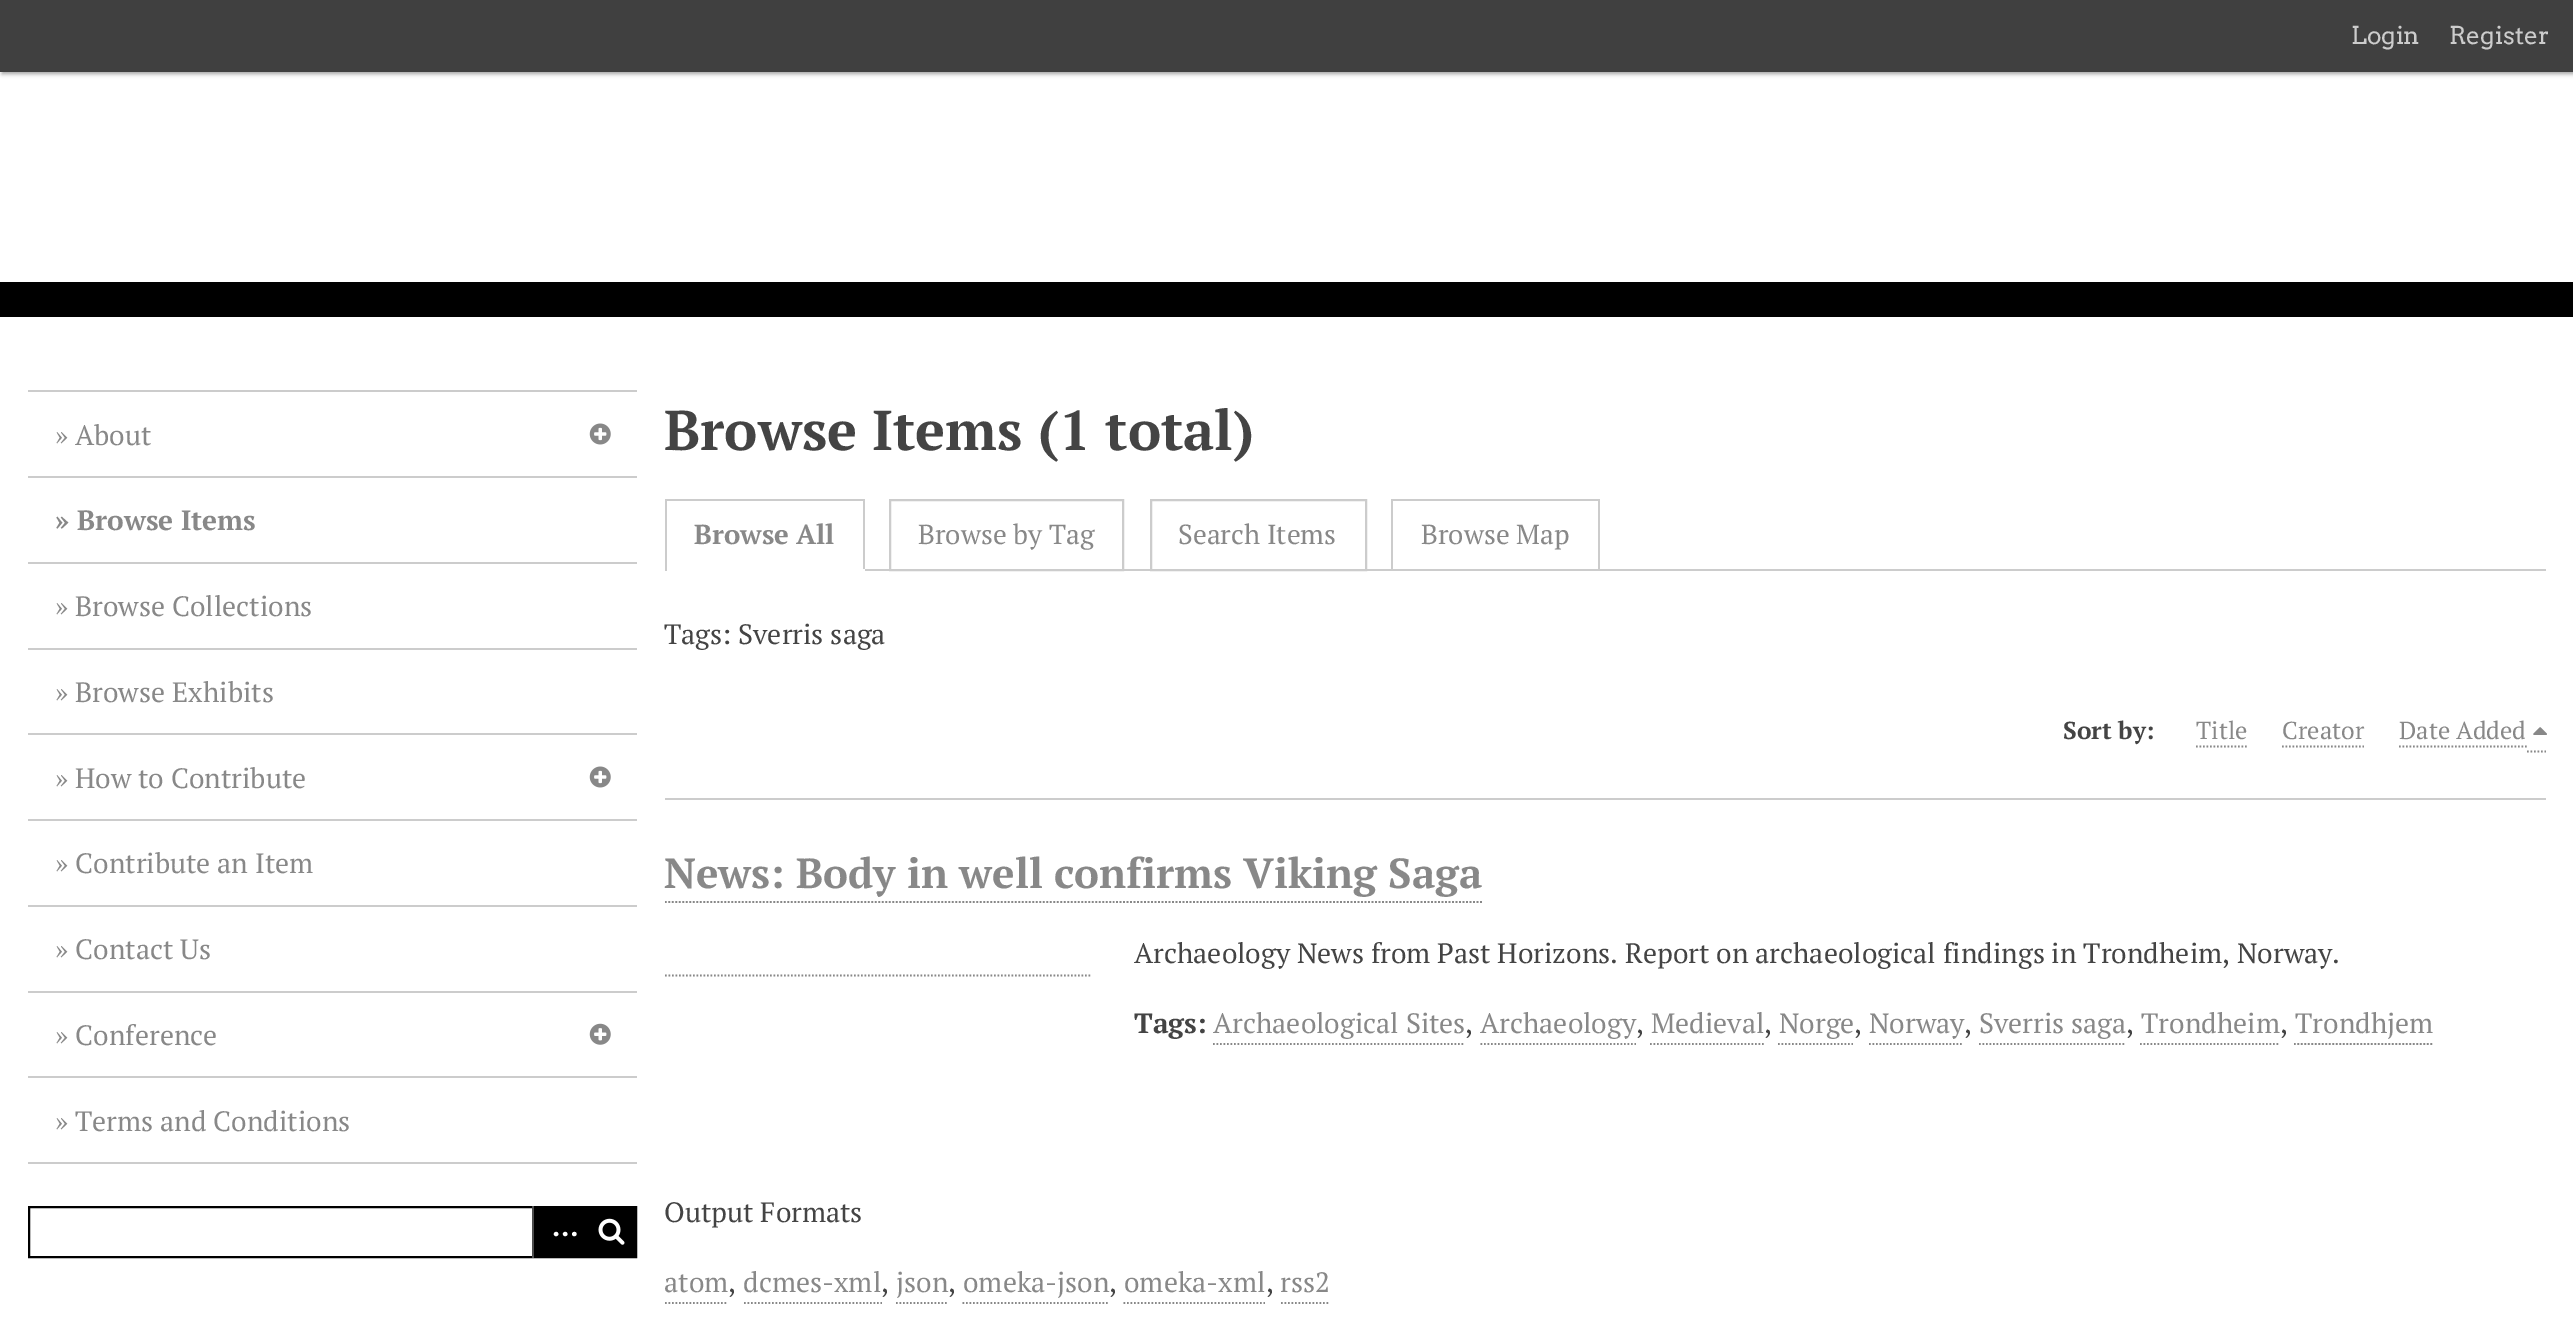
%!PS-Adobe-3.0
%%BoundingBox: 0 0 2573 1330
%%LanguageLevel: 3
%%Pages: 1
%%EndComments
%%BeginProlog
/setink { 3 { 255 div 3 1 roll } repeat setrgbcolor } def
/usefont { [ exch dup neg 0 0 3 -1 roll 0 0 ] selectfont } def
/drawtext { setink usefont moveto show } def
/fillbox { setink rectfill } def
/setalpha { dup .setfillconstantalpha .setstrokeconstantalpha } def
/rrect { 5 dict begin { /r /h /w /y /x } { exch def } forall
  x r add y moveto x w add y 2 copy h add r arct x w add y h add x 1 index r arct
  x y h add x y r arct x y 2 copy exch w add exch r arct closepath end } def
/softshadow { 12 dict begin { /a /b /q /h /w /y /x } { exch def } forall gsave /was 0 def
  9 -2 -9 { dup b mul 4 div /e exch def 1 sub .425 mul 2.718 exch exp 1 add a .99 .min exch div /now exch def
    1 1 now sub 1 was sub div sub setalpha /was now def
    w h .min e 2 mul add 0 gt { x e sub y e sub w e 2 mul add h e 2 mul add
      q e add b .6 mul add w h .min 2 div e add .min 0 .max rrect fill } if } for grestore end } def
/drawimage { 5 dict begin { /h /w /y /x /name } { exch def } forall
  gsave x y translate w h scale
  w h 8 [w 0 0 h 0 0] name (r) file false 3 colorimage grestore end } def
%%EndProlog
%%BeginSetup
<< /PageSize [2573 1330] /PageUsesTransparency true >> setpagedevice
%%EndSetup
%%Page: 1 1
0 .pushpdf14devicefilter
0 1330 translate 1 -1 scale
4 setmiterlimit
0 0 2573 1330 255 255 255 fillbox
0 0 0 setink
2 2 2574 72 0 2 0.35 softshadow
0 0 2573 72 64 64 64 fillbox
(Login) 2351 44 /Arvo-Regular 24.5 204 204 204 drawtext
(Register) 2449 44 /Arvo-Regular 24.5 204 204 204 drawtext
0 282 2573 35 0 0 0 fillbox
28 390 609 2 204 204 204 fillbox
28 476 609 2 204 204 204 fillbox
(» About) 55 445 /PTSerif-Regular 28 136 136 136 drawtext
(assets/img1.rgb) 589 423 22 22 drawimage
28 562 609 2 204 204 204 fillbox
(» Browse Items) 55 530 /PTSerif-Bold 28 136 136 136 drawtext
28 648 609 2 204 204 204 fillbox
(» Browse Collections) 55 616 /PTSerif-Regular 28 136 136 136 drawtext
28 733 609 2 204 204 204 fillbox
(» Browse Exhibits) 55 702 /PTSerif-Regular 28 136 136 136 drawtext
28 819 609 2 204 204 204 fillbox
(» How to Contribute) 55 788 /PTSerif-Regular 28 136 136 136 drawtext
(assets/img1.rgb) 589 766 22 22 drawimage
28 905 609 2 204 204 204 fillbox
(» Contribute an Item) 55 873 /PTSerif-Regular 28 136 136 136 drawtext
28 991 609 2 204 204 204 fillbox
(» Contact Us) 55 959 /PTSerif-Regular 28 136 136 136 drawtext
28 1076 609 2 204 204 204 fillbox
(» Conference) 55 1045 /PTSerif-Regular 28 136 136 136 drawtext
(assets/img2.rgb) 589 1023 22 22 drawimage
28 1162 609 2 204 204 204 fillbox
(» Terms and Conditions) 55 1131 /PTSerif-Regular 28 136 136 136 drawtext
0 0 0 setink
2 setlinewidth
29 1207 607 50 rectstroke
534 1208 101 48 0 0 0 fillbox
532 1206 2 52 77 77 77 fillbox
(…) 552 1236 /PTSerif-Bold 28 255 255 255 drawtext
(assets/img3.rgb) 598 1218 27 27 drawimage
(Browse Items \(1 total\)) 664 450 /PTSerif-Bold 56 68 68 68 drawtext
865 569 1681 2 204 204 204 fillbox
665 499 200 2 204 204 204 fillbox
863 499 2 72 204 204 204 fillbox
863 569 2 2 255 255 255 fillbox
665 499 2 72 204 204 204 fillbox
(Browse All) 694 544 /PTSerif-Bold 27.5 136 136 136 drawtext
204 204 204 setink
890 500 233 70 rectstroke
(Browse by Tag) 918 544 /PTSerif-Regular 27.5 136 136 136 drawtext
204 204 204 setink
1151 500 215 70 rectstroke
(Search Items) 1178 544 /PTSerif-Regular 27.5 136 136 136 drawtext
1391 499 209 2 204 204 204 fillbox
1598 499 2 70 204 204 204 fillbox
1391 499 2 70 204 204 204 fillbox
(Browse Map) 1421 544 /PTSerif-Regular 27.5 136 136 136 drawtext
(Tags: Sverris saga) 664 644 /PTSerif-Regular 28 68 68 68 drawtext
(Sort by:) 2063 739 /PTSerif-Bold 24.5 68 68 68 drawtext
(Title) 2196 739 /PTSerif-Regular 24.5 136 136 136 drawtext
1.8 setlinewidth
[1.75 1.75] 0 setdash
2196 746.5 moveto 2247 746.5 lineto stroke
(Creator) 2282 739 /PTSerif-Regular 24.5 136 136 136 drawtext
2282 746.5 moveto 2364 746.5 lineto stroke
2399 746.5 moveto 2527 746.5 lineto stroke
2527 751.5 moveto 2546 751.5 lineto stroke
(Date Added) 2399 739 /PTSerif-Regular 24.5 136 136 136 drawtext
(assets/img4.rgb) 2533 727 14 8 drawimage
665 798 1881 2 204 204 204 fillbox
(News: Body in well confirms Viking Saga) 664 888 /PTSerif-Bold 42 136 136 136 drawtext
665 902 moveto 1482 902 lineto stroke
(Archaeology News from Past Horizons. Report on archaeological findings in Trondheim, Norway.) 1134 963 /PTSerif-Regular 28 68 68 68 drawtext
136 136 136 setink
665 975.5 moveto 1092 975.5 lineto stroke
(Tags:) 1134 1033 /PTSerif-Bold 28 68 68 68 drawtext
(Archaeological Sites) 1213 1033 /PTSerif-Regular 28 136 136 136 drawtext
1213 1044 moveto 1465 1044 lineto stroke
(,) 1465 1033 /PTSerif-Regular 28 68 68 68 drawtext
(Archaeology) 1480 1033 /PTSerif-Regular 28 136 136 136 drawtext
1480.5 1044 moveto 1636 1044 lineto stroke
(,) 1636 1033 /PTSerif-Regular 28 68 68 68 drawtext
(Medieval) 1651 1033 /PTSerif-Regular 28 136 136 136 drawtext
1650 1044 moveto 1764 1044 lineto stroke
(,) 1764 1033 /PTSerif-Regular 28 68 68 68 drawtext
(Norge) 1779 1033 /PTSerif-Regular 28 136 136 136 drawtext
1778 1044 moveto 1853 1044 lineto stroke
(,) 1854 1033 /PTSerif-Regular 28 68 68 68 drawtext
(Norway) 1869 1033 /PTSerif-Regular 28 136 136 136 drawtext
1869 1044 moveto 1963.5 1044 lineto stroke
(,) 1964 1033 /PTSerif-Regular 28 68 68 68 drawtext
(Sverris saga) 1979 1033 /PTSerif-Regular 28 136 136 136 drawtext
1979 1044 moveto 2126 1044 lineto stroke
(,) 2126 1033 /PTSerif-Regular 28 68 68 68 drawtext
(Trondheim) 2141 1033 /PTSerif-Regular 28 136 136 136 drawtext
2140 1044 moveto 2280 1044 lineto stroke
(,) 2280 1033 /PTSerif-Regular 28 68 68 68 drawtext
(Trondhjem) 2295 1033 /PTSerif-Regular 28 136 136 136 drawtext
2294 1044 moveto 2432.5 1044 lineto stroke
(Output Formats) 664 1222 /PTSerif-Regular 28 68 68 68 drawtext
(atom) 664 1292 /PTSerif-Regular 28 136 136 136 drawtext
665 1303 moveto 728 1303 lineto stroke
(,) 728 1292 /PTSerif-Regular 28 68 68 68 drawtext
(dcmes-xml) 743 1292 /PTSerif-Regular 28 136 136 136 drawtext
744 1303 moveto 882 1303 lineto stroke
(,) 881 1292 /PTSerif-Regular 28 68 68 68 drawtext
(json) 896 1292 /PTSerif-Regular 28 136 136 136 drawtext
896 1303 moveto 948.5 1303 lineto stroke
(,) 948 1292 /PTSerif-Regular 28 68 68 68 drawtext
(omeka-json) 963 1292 /PTSerif-Regular 28 136 136 136 drawtext
962.5 1303 moveto 1109.5 1303 lineto stroke
(,) 1109 1292 /PTSerif-Regular 28 68 68 68 drawtext
(omeka-xml) 1124 1292 /PTSerif-Regular 28 136 136 136 drawtext
1123.5 1303 moveto 1265 1303 lineto stroke
(,) 1266 1292 /PTSerif-Regular 28 68 68 68 drawtext
(rss2) 1280 1292 /PTSerif-Regular 28 136 136 136 drawtext
1281 1303 moveto 1330 1303 lineto stroke
.poppdf14devicefilter showpage
%%EOF
